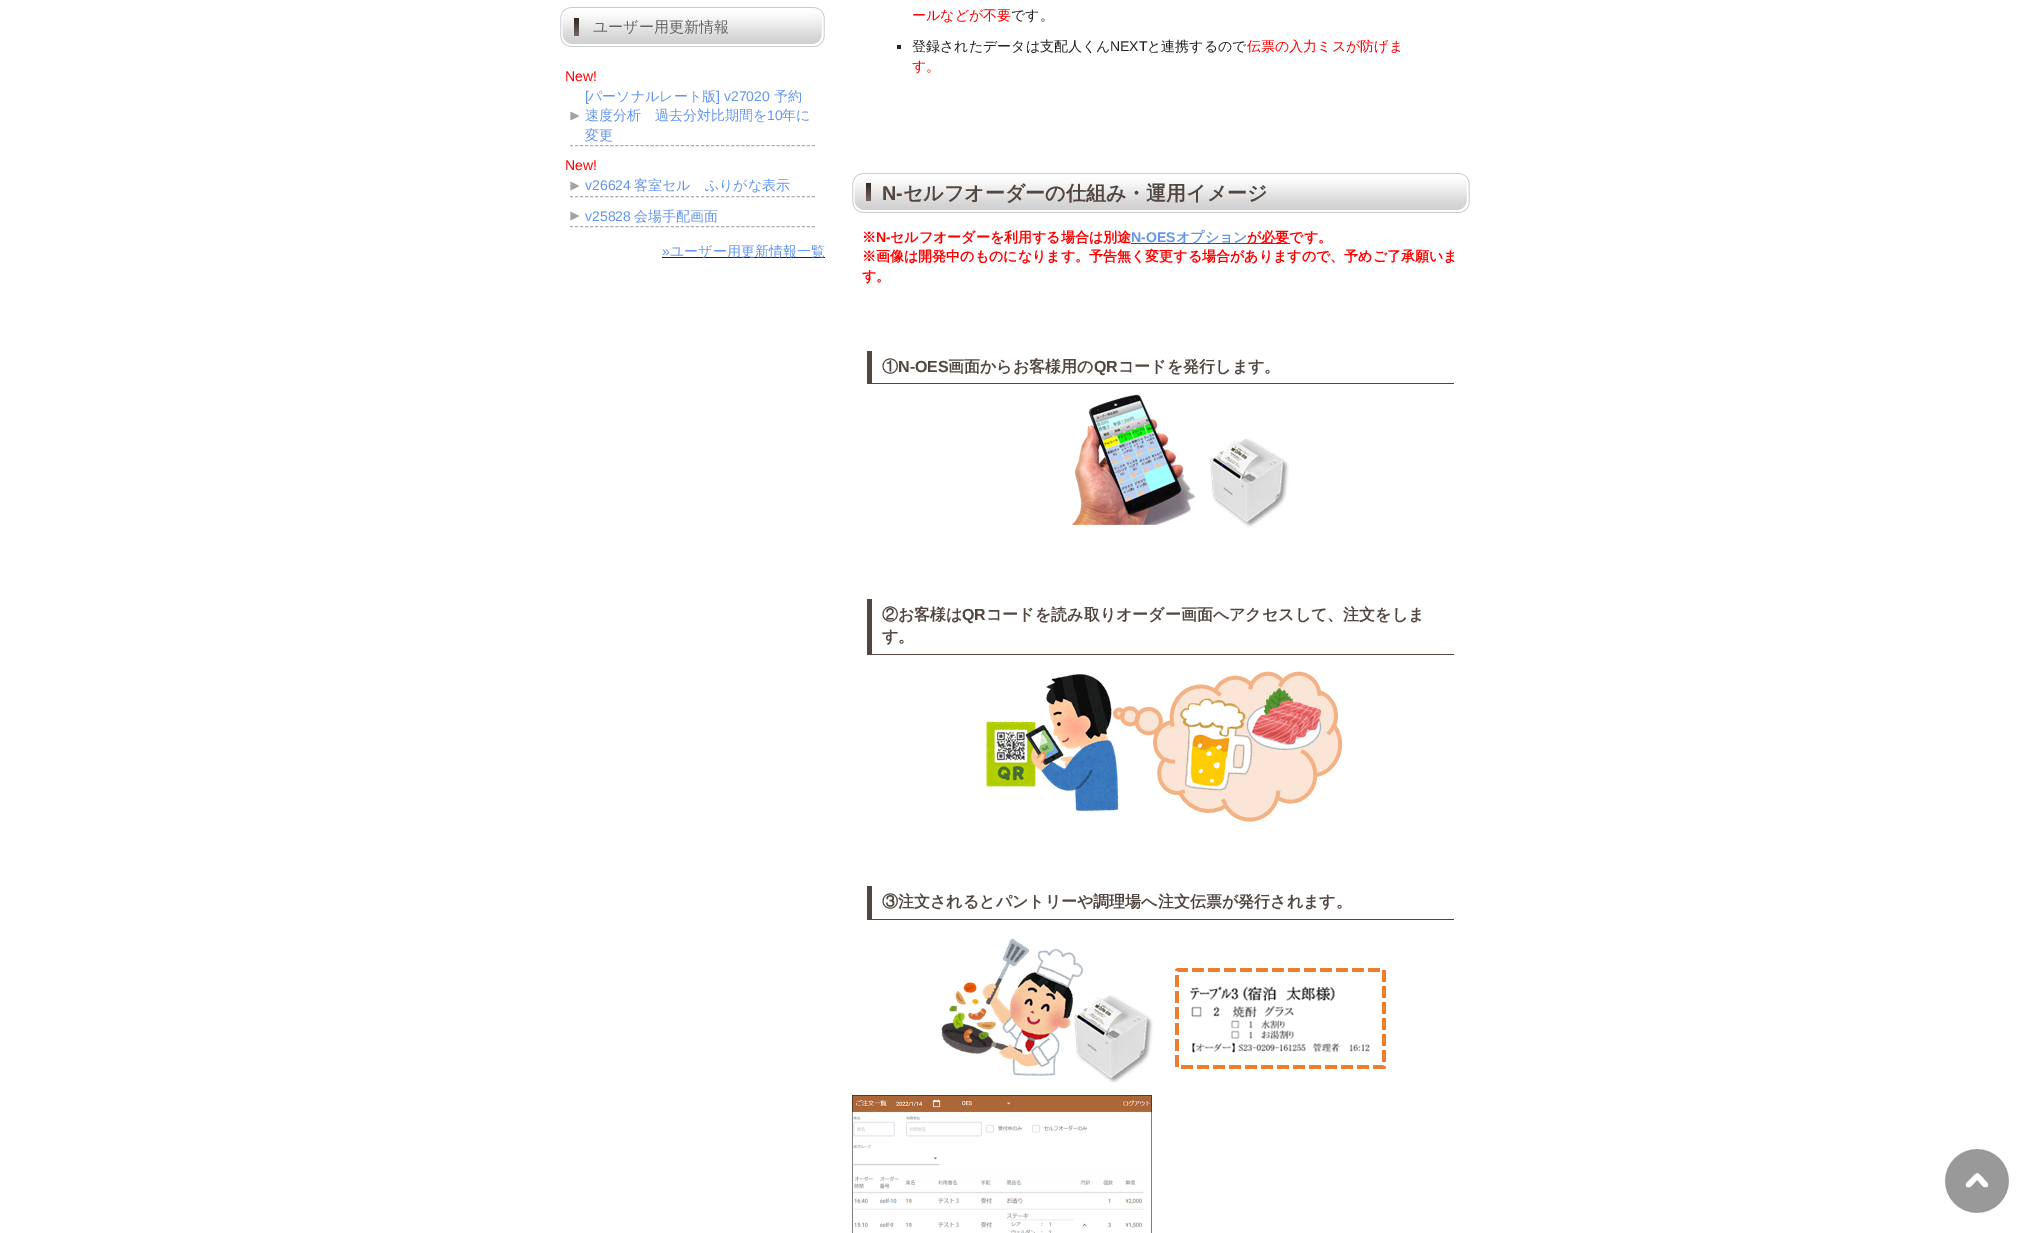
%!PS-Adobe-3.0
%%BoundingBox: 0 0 2029 1233
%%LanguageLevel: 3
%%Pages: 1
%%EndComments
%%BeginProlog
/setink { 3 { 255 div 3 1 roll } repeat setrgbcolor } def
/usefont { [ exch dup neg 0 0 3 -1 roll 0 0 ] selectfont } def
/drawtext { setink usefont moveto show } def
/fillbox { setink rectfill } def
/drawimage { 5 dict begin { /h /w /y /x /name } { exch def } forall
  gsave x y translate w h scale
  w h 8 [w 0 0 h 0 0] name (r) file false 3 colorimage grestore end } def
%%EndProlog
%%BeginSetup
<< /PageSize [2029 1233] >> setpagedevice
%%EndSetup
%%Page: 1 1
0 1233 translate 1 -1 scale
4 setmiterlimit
0 0 2029 1233 255 255 255 fillbox
(assets/img1.rgb) 560 7 265 40 drawimage
(ユーザー用更新情報) 593 32 /WenQuanYiZenHei-Medium 15 102 102 102 drawtext
(New!) 565 81 /LiberationSans-Regular 14 255 0 0 drawtext
174 174 174 setink
[3 2.04] 0 setdash
570 145.5 moveto 815 145.5 lineto stroke
(assets/img2.rgb) 570 111 10 10 drawimage
([) 585 101 /LiberationSans-Regular 14 100 149 237 drawtext
(パーソナルレート版) 588 101 /WenQuanYiZenHei-Medium 14 100 149 237 drawtext
(] v27020) 716 101 /LiberationSans-Regular 14 100 149 237 drawtext
(予約) 774 101 /WenQuanYiZenHei-Medium 14 100 149 237 drawtext
(速度分析　過去分対比期間を) 585 120 /WenQuanYiZenHei-Medium 14 100 149 237 drawtext
(10) 767 120 /LiberationSans-Regular 14 100 149 237 drawtext
(年に) 782 120 /WenQuanYiZenHei-Medium 14 100 149 237 drawtext
(変更) 585 140 /WenQuanYiZenHei-Medium 14 100 149 237 drawtext
(New!) 565 170 /LiberationSans-Regular 14 255 0 0 drawtext
174 174 174 setink
570 196.5 moveto 815 196.5 lineto stroke
(assets/img2.rgb) 570 181 10 10 drawimage
(v26624) 585 190 /LiberationSans-Regular 14 100 149 237 drawtext
(客室セル　ふりがな表示) 634 190 /WenQuanYiZenHei-Medium 14 100 149 237 drawtext
174 174 174 setink
570 226.5 moveto 815 226.5 lineto stroke
(assets/img2.rgb) 570 211 10 10 drawimage
(v25828) 585 221 /LiberationSans-Regular 14 100 149 237 drawtext
(会場手配画面) 634 221 /WenQuanYiZenHei-Medium 14 100 149 237 drawtext
(») 662 256 /LiberationSans-Regular 14 100 149 237 drawtext
662 257 163 1 34 34 34 fillbox
(ユーザー用更新情報一覧) 670 256 /WenQuanYiZenHei-Medium 14 100 149 237 drawtext
(ールなどが不要) 912 20 /WenQuanYiZenHei-Medium 14 255 0 0 drawtext
(です。) 1011 20 /WenQuanYiZenHei-Medium 14 34 34 34 drawtext
897 45 4 4 34 34 34 fillbox
(登録されたデータは支配人くん) 912 51 /WenQuanYiZenHei-Medium 14 34 34 34 drawtext
(NEXT) 1110 51 /LiberationSans-Regular 14 34 34 34 drawtext
(と連携するので) 1147 51 /WenQuanYiZenHei-Medium 14 34 34 34 drawtext
(伝票の入力ミスが防げま) 1247 51 /WenQuanYiZenHei-Medium 14 255 0 0 drawtext
(す。) 912 71 /WenQuanYiZenHei-Medium 14 255 0 0 drawtext
(assets/img3.rgb) 852 173 618 40 drawimage
(N-) 882 200 /LiberationSans-Bold 20 82 70 64 drawtext
(セルフオーダーの仕組み・運用イメージ) 903 200 /WenQuanYiZenHei-Bold 20 82 70 64 drawtext
(※) 862 242 /WenQuanYiZenHei-Bold 14 255 0 0 drawtext
(N-) 876 242 /LiberationSans-Bold 14 255 0 0 drawtext
(セルフオーダーを利用する場合は別途) 890 242 /WenQuanYiZenHei-Bold 14 255 0 0 drawtext
1131 243 159 1 255 0 0 fillbox
(N-OES) 1131 242 /LiberationSans-Bold 14 100 149 237 drawtext
(オプション) 1176 242 /WenQuanYiZenHei-Bold 14 100 149 237 drawtext
(が必要です。) 1247 242 /WenQuanYiZenHei-Bold 14 255 0 0 drawtext
(※画像は開発中のものになります。予告無く変更する場合がありますので、予めご了承願いま) 862 261 /WenQuanYiZenHei-Bold 14 255 0 0 drawtext
(す。) 862 281 /WenQuanYiZenHei-Bold 14 255 0 0 drawtext
867 383 587 1 82 70 64 fillbox
867 351 5 33 82 70 64 fillbox
(①) 882 372 /WenQuanYiZenHei-Bold 16 82 70 64 drawtext
(N-OES) 898 372 /LiberationSans-Bold 16 82 70 64 drawtext
(画面からお客様用の) 948 372 /WenQuanYiZenHei-Bold 16 82 70 64 drawtext
(QR) 1094 372 /LiberationSans-Bold 16 82 70 64 drawtext
(コードを発行します。) 1118 372 /WenQuanYiZenHei-Bold 16 82 70 64 drawtext
(assets/img4.rgb) 1071 394 218 133 drawimage
867 654 587 1 82 70 64 fillbox
867 599 5 56 82 70 64 fillbox
(②お客様は) 882 620 /WenQuanYiZenHei-Bold 16 82 70 64 drawtext
(QR) 962 620 /LiberationSans-Bold 16 82 70 64 drawtext
(コードを読み取りオーダー画面へアクセスして、注文をしま) 986 620 /WenQuanYiZenHei-Bold 16 82 70 64 drawtext
(す。) 882 642 /WenQuanYiZenHei-Bold 16 82 70 64 drawtext
(assets/img5.rgb) 986 671 357 151 drawimage
867 919 587 1 82 70 64 fillbox
867 886 5 34 82 70 64 fillbox
(③注文されるとパントリーや調理場へ注文伝票が発行されます。) 882 907 /WenQuanYiZenHei-Bold 16 82 70 64 drawtext
(assets/img6.rgb) 941 938 445 145 drawimage
(assets/img7.rgb) 852 1095 300 138 drawimage
(assets/img8.rgb) 1945 1149 64 64 drawimage
showpage
%%EOF
